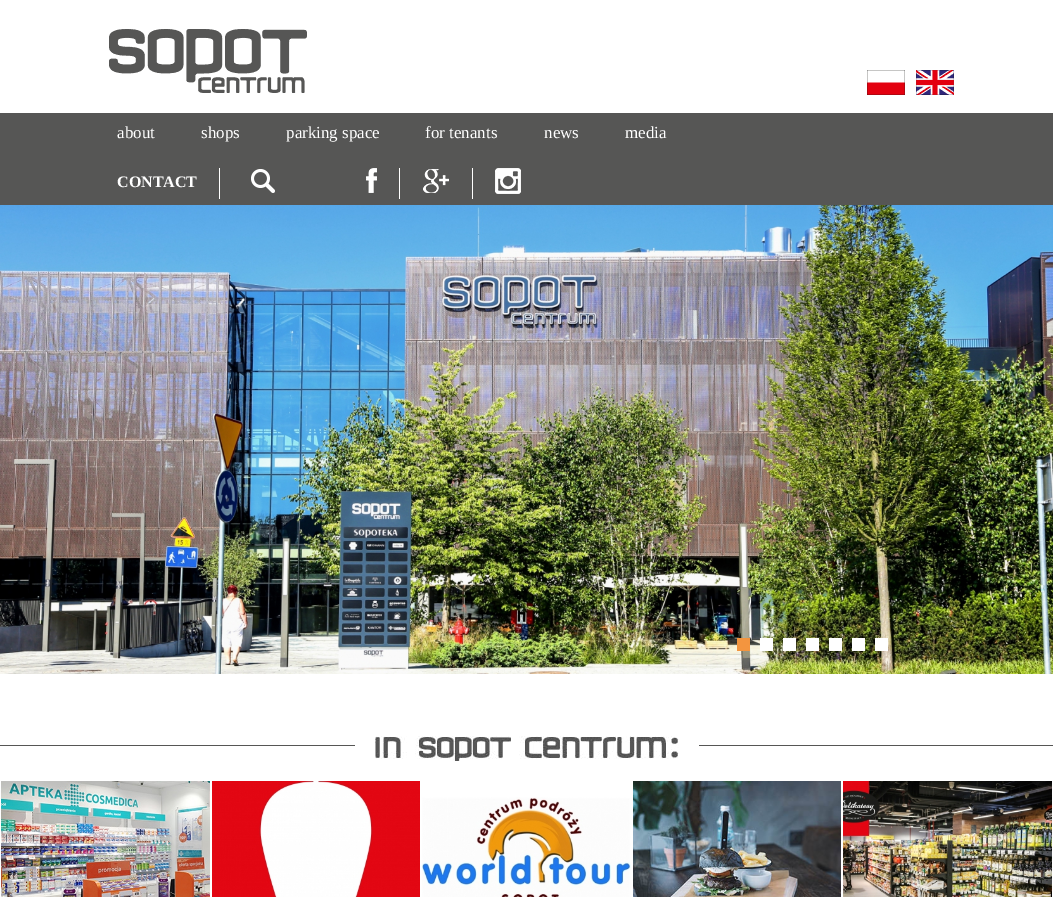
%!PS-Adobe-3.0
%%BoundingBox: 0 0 1053 897
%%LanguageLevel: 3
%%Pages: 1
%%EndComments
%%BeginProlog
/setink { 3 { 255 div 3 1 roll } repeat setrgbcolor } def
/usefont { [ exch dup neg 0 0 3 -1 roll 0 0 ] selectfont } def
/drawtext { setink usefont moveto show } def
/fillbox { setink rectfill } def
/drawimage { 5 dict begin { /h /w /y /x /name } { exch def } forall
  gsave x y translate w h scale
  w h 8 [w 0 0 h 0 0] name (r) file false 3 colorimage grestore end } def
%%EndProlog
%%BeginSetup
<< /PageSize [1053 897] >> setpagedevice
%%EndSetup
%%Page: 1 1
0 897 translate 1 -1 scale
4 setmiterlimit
0 0 1053 897 255 255 255 fillbox
(assets/img1.rgb) 109 29 198 64 drawimage
(assets/img2.rgb) 867 70 38 25 drawimage
(assets/img3.rgb) 916 70 38 25 drawimage
0 113 1053 92 86 86 85 fillbox
(about) 117 138 /LiberationSerif-Regular 17 255 255 255 drawtext
(shops) 201 138 /LiberationSerif-Regular 17 255 255 255 drawtext
(parking space) 286 138 /LiberationSerif-Regular 17 255 255 255 drawtext
(for tenants) 425 138 /LiberationSerif-Regular 17 255 255 255 drawtext
(news) 544 138 /LiberationSerif-Regular 17 255 255 255 drawtext
(media) 625 138 /LiberationSerif-Regular 17 255 255 255 drawtext
(CONTACT) 117 187 /LiberationSerif-Bold 16 255 255 255 drawtext
219 168 1 31 255 255 255 fillbox
(assets/img4.rgb) 251 169 24 24 drawimage
(assets/img5.rgb) 366 168 11 25 drawimage
399 168 1 31 255 255 255 fillbox
(assets/img6.rgb) 423 169 26 24 drawimage
472 168 1 31 255 255 255 fillbox
(assets/img7.rgb) 495 168 26 26 drawimage
(assets/img8.rgb) 0 205 1053 469 drawimage
737 638 13 13 243 149 63 fillbox
760 638 13 13 255 255 255 fillbox
783 638 13 13 255 255 255 fillbox
806 638 13 13 255 255 255 fillbox
829 638 13 13 255 255 255 fillbox
852 638 13 13 255 255 255 fillbox
875 638 13 13 255 255 255 fillbox
0 745 355 1 86 86 85 fillbox
(assets/img9.rgb) 375 736 304 25 drawimage
699 745 354 1 86 86 85 fillbox
(assets/img10.rgb) 1 781 209 116 drawimage
(assets/img11.rgb) 212 781 208 116 drawimage
(assets/img12.rgb) 422 797 209 100 drawimage
(assets/img13.rgb) 633 781 208 116 drawimage
(assets/img14.rgb) 843 781 209 116 drawimage
showpage
%%EOF
